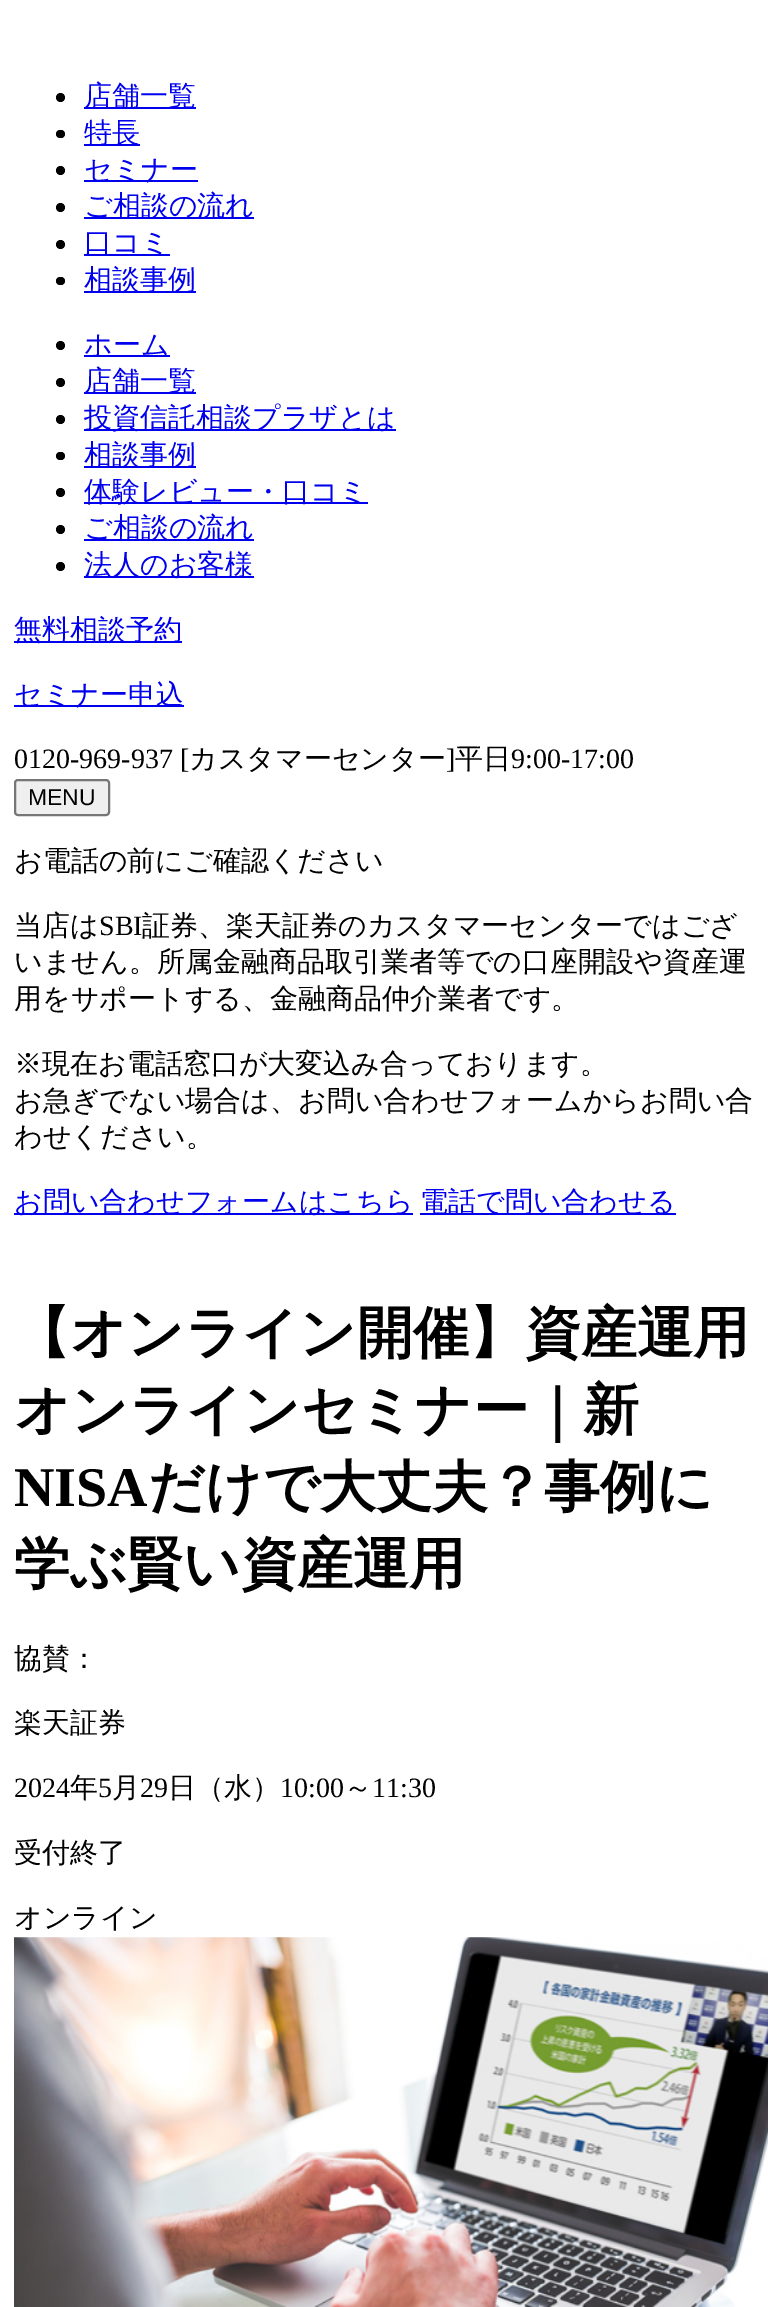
%!PS-Adobe-3.0
%%BoundingBox: 0 0 768 2307
%%LanguageLevel: 3
%%Pages: 1
%%EndComments
%%BeginProlog
/setink { 3 { 255 div 3 1 roll } repeat setrgbcolor } def
/usefont { [ exch dup neg 0 0 3 -1 roll 0 0 ] selectfont } def
/drawtext { setink usefont moveto show } def
/fillbox { setink rectfill } def
/disc { newpath 0 360 arc closepath } def
/rrect { 5 dict begin { /r /h /w /y /x } { exch def } forall
  x r add y moveto x w add y 2 copy h add r arct x w add y h add x 1 index r arct
  x y h add x y r arct x y 2 copy exch w add exch r arct closepath end } def
/drawimage { 5 dict begin { /h /w /y /x /name } { exch def } forall
  gsave x y translate w h scale
  w h 8 [w 0 0 h 0 0] name (r) file false 3 colorimage grestore end } def
%%EndProlog
%%BeginSetup
<< /PageSize [768 2307] >> setpagedevice
%%EndSetup
%%Page: 1 1
0 2307 translate 1 -1 scale
4 setmiterlimit
0 0 768 2307 255 255 255 fillbox
0 0 0 setink
60.5 97.5 4.5 disc fill
84 107 112 2 0 0 238 fillbox
(店舗一覧) 84 105 /WenQuanYiZenHei-Medium 28 0 0 238 drawtext
0 0 0 setink
56 130 9 8 4 rrect fill
84 144 56 2 0 0 238 fillbox
(特長) 84 142 /WenQuanYiZenHei-Medium 28 0 0 238 drawtext
0 0 0 setink
60.5 170.5 4.5 disc fill
84 180 114 2 0 0 238 fillbox
(セミナー) 84 179 /WenQuanYiZenHei-Medium 28 0 0 238 drawtext
0 0 0 setink
60.5 207.5 4.5 disc fill
84 217 170 2 0 0 238 fillbox
(ご相談の流れ) 84 215 /WenQuanYiZenHei-Medium 28 0 0 238 drawtext
0 0 0 setink
60.5 244.5 4.5 disc fill
84 254 86 2 0 0 238 fillbox
(口コミ) 84 252 /WenQuanYiZenHei-Medium 28 0 0 238 drawtext
0 0 0 setink
56 277 9 8 4 rrect fill
84 291 112 2 0 0 238 fillbox
(相談事例) 84 289 /WenQuanYiZenHei-Medium 28 0 0 238 drawtext
0 0 0 setink
60.5 345.5 4.5 disc fill
84 355 86 2 0 0 238 fillbox
(ホーム) 84 354 /WenQuanYiZenHei-Medium 28 0 0 238 drawtext
0 0 0 setink
60.5 382.5 4.5 disc fill
84 392 112 2 0 0 238 fillbox
(店舗一覧) 84 390 /WenQuanYiZenHei-Medium 28 0 0 238 drawtext
0 0 0 setink
60.5 419.5 4.5 disc fill
84 429 312 2 0 0 238 fillbox
(投資信託相談プラザとは) 84 427 /WenQuanYiZenHei-Medium 28 0 0 238 drawtext
0 0 0 setink
56 452 9 8 4 rrect fill
84 466 112 2 0 0 238 fillbox
(相談事例) 84 464 /WenQuanYiZenHei-Medium 28 0 0 238 drawtext
0 0 0 setink
60.5 492.5 4.5 disc fill
84 502 284 2 0 0 238 fillbox
(体験レビュー・口コミ) 84 501 /WenQuanYiZenHei-Medium 28 0 0 238 drawtext
0 0 0 setink
60.5 529.5 4.5 disc fill
84 539 170 2 0 0 238 fillbox
(ご相談の流れ) 84 537 /WenQuanYiZenHei-Medium 28 0 0 238 drawtext
0 0 0 setink
60.5 566.5 4.5 disc fill
84 576 170 2 0 0 238 fillbox
(法人のお客様) 84 574 /WenQuanYiZenHei-Medium 28 0 0 238 drawtext
14 641 168 2 0 0 238 fillbox
(無料相談予約) 14 639 /WenQuanYiZenHei-Medium 28 0 0 238 drawtext
14 705 170 2 0 0 238 fillbox
(セミナー申込) 14 704 /WenQuanYiZenHei-Medium 28 0 0 238 drawtext
(0120-969-937 [) 14 768 /LiberationSerif-Regular 28 0 0 0 drawtext
(カスタマーセンター) 189 768 /WenQuanYiZenHei-Medium 28 0 0 0 drawtext
(]) 446 768 /LiberationSerif-Regular 28 0 0 0 drawtext
(平日) 455 768 /WenQuanYiZenHei-Medium 28 0 0 0 drawtext
(9:00-17:00) 511 768 /LiberationSerif-Regular 28 0 0 0 drawtext
239 239 239 setink
15 780 94 35 3 rrect gsave fill grestore
118 118 118 setink
2 setlinewidth
stroke
(MENU) 28 805 /LiberationSans-Regular 23 0 0 0 drawtext
(お電話の前にご確認ください) 14 870 /WenQuanYiZenHei-Medium 28 0 0 0 drawtext
(当店は) 14 935 /WenQuanYiZenHei-Medium 28 0 0 0 drawtext
(SBI) 99 935 /LiberationSerif-Regular 28 0 0 0 drawtext
(証券、楽天証券のカスタマーセンターではござ) 142 935 /WenQuanYiZenHei-Medium 28 0 0 0 drawtext
(いません。所属金融商品取引業者等での口座開設や資産運) 14 971 /WenQuanYiZenHei-Medium 28 0 0 0 drawtext
(用をサポートする、金融商品仲介業者です。) 14 1008 /WenQuanYiZenHei-Medium 28 0 0 0 drawtext
(※現在お電話窓口が大変込み合っております。) 14 1073 /WenQuanYiZenHei-Medium 28 0 0 0 drawtext
(お急ぎでない場合は、お問い合わせフォームからお問い合) 14 1110 /WenQuanYiZenHei-Medium 28 0 0 0 drawtext
(わせください。) 14 1146 /WenQuanYiZenHei-Medium 28 0 0 0 drawtext
14 1213 399 2 0 0 238 fillbox
(お問い合わせフォームはこちら) 14 1211 /WenQuanYiZenHei-Medium 28 0 0 238 drawtext
420 1213 256 2 0 0 238 fillbox
(電話で問い合わせる) 420 1211 /WenQuanYiZenHei-Medium 28 0 0 238 drawtext
(【オンライン開催】資産運用) 14 1352 /WenQuanYiZenHei-Bold 56 0 0 0 drawtext
(オンラインセミナー｜新) 14 1429 /WenQuanYiZenHei-Bold 56 0 0 0 drawtext
(NISA) 14 1506 /LiberationSerif-Bold 56 0 0 0 drawtext
(だけで大丈夫？事例に) 148 1506 /WenQuanYiZenHei-Bold 56 0 0 0 drawtext
(学ぶ賢い資産運用) 14 1583 /WenQuanYiZenHei-Bold 56 0 0 0 drawtext
(協賛：) 14 1668 /WenQuanYiZenHei-Medium 28 0 0 0 drawtext
(楽天証券) 14 1732 /WenQuanYiZenHei-Medium 28 0 0 0 drawtext
(2024) 14 1797 /LiberationSerif-Regular 28 0 0 0 drawtext
(年) 70 1797 /WenQuanYiZenHei-Medium 28 0 0 0 drawtext
(5) 98 1797 /LiberationSerif-Regular 28 0 0 0 drawtext
(月) 112 1797 /WenQuanYiZenHei-Medium 28 0 0 0 drawtext
(29) 140 1797 /LiberationSerif-Regular 28 0 0 0 drawtext
(日（水）) 168 1797 /WenQuanYiZenHei-Medium 28 0 0 0 drawtext
(10:00) 280 1797 /LiberationSerif-Regular 28 0 0 0 drawtext
(～) 344 1797 /WenQuanYiZenHei-Medium 28 0 0 0 drawtext
(11:30) 372 1797 /LiberationSerif-Regular 28 0 0 0 drawtext
(受付終了) 14 1862 /WenQuanYiZenHei-Medium 28 0 0 0 drawtext
(オンライン) 14 1927 /WenQuanYiZenHei-Medium 28 0 0 0 drawtext
(assets/img1.rgb) 14 1937 754 370 drawimage
showpage
%%EOF
